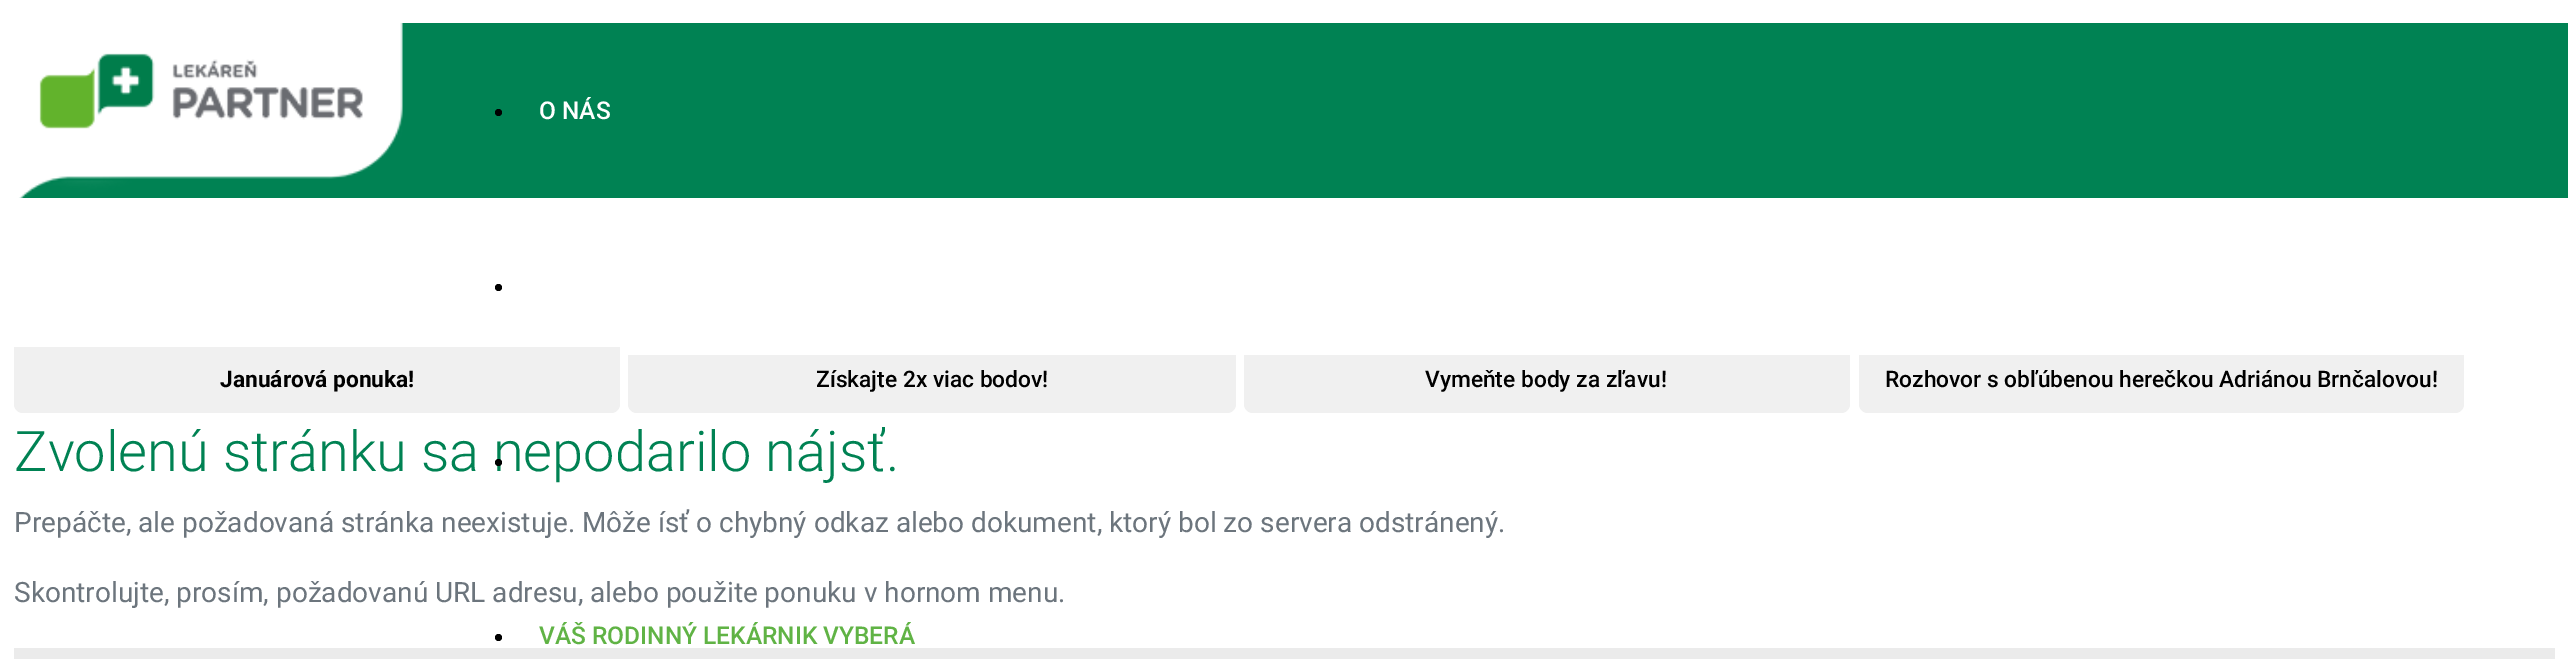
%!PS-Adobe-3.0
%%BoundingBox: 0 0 2568 659
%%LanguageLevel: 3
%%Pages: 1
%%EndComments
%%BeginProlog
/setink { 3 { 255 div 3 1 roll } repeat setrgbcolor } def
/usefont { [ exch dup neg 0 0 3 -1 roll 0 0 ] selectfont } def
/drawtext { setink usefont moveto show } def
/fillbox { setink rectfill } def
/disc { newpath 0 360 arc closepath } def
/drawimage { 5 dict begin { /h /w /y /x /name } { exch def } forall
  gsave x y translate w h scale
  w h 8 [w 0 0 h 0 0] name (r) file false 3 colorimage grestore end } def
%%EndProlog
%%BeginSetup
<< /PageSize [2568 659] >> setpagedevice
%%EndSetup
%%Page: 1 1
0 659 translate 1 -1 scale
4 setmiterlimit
0 0 2568 659 255 255 255 fillbox
18 23 2550 175 0 130 83 fillbox
(assets/img1.rgb) 14 23 389 175 drawimage
0 0 0 setink
498.5 112.5 3.5 disc fill
(O NÁS) 539 119 /Roboto-Medium 24.5 255 255 255 drawtext
0 0 0 setink
498.5 287.5 3.5 disc fill
(Zvolenú stránku sa nepodarilo nájsť.) 14 471 /Roboto-Light 56 0 130 83 drawtext
0 0 0 setink
498.5 462.5 3.5 disc fill
498.5 637.5 3.5 disc fill
(VÁŠ RODINNÝ LEKÁRNIK VYBERÁ) 539 644 /Roboto-Medium 24.5 96 179 69 drawtext
240 240 240 setink
14 347 moveto 620 347 lineto 620 404 lineto 620 409 616 413 611 413 curveto 23 413 lineto 18 413 14 409 14 404 curveto closepath fill
(Januárová ponuka!) 220 387 /Roboto-Bold 22.75 0 0 0 drawtext
240 240 240 setink
628 355 moveto 1236 355 lineto 1236 404 lineto 1236 409 1232 413 1227 413 curveto 637 413 lineto 632 413 628 409 628 404 curveto closepath fill
(Získajte 2x viac bodov!) 816 387 /Roboto-Medium 22.75 0 0 0 drawtext
240 240 240 setink
1244 355 moveto 1850 355 lineto 1850 404 lineto 1850 409 1846 413 1841 413 curveto 1253 413 lineto 1248 413 1244 409 1244 404 curveto closepath fill
(Vymeňte body za zľavu!) 1425 387 /Roboto-Medium 22.75 0 0 0 drawtext
240 240 240 setink
1859 355 moveto 2464 355 lineto 2464 404 lineto 2464 409 2460 413 2455 413 curveto 1868 413 lineto 1863 413 1859 409 1859 404 curveto closepath fill
(Rozhovor s obľúbenou herečkou Adriánou Brnčalovou!) 1885 387 /Roboto-Medium 22.75 0 0 0 drawtext
(Prepáčte, ale požadovaná stránka neexistuje. Môže ísť o chybný odkaz alebo dokument, ktorý bol zo servera odstránený.) 14 532 /Roboto-Regular 28 108 117 125 drawtext
(Skontrolujte, prosím, požadovanú URL adresu, alebo použite ponuku v hornom menu.) 14 602 /Roboto-Regular 28 108 117 125 drawtext
14 648 2541 11 235 235 235 fillbox
showpage
%%EOF
